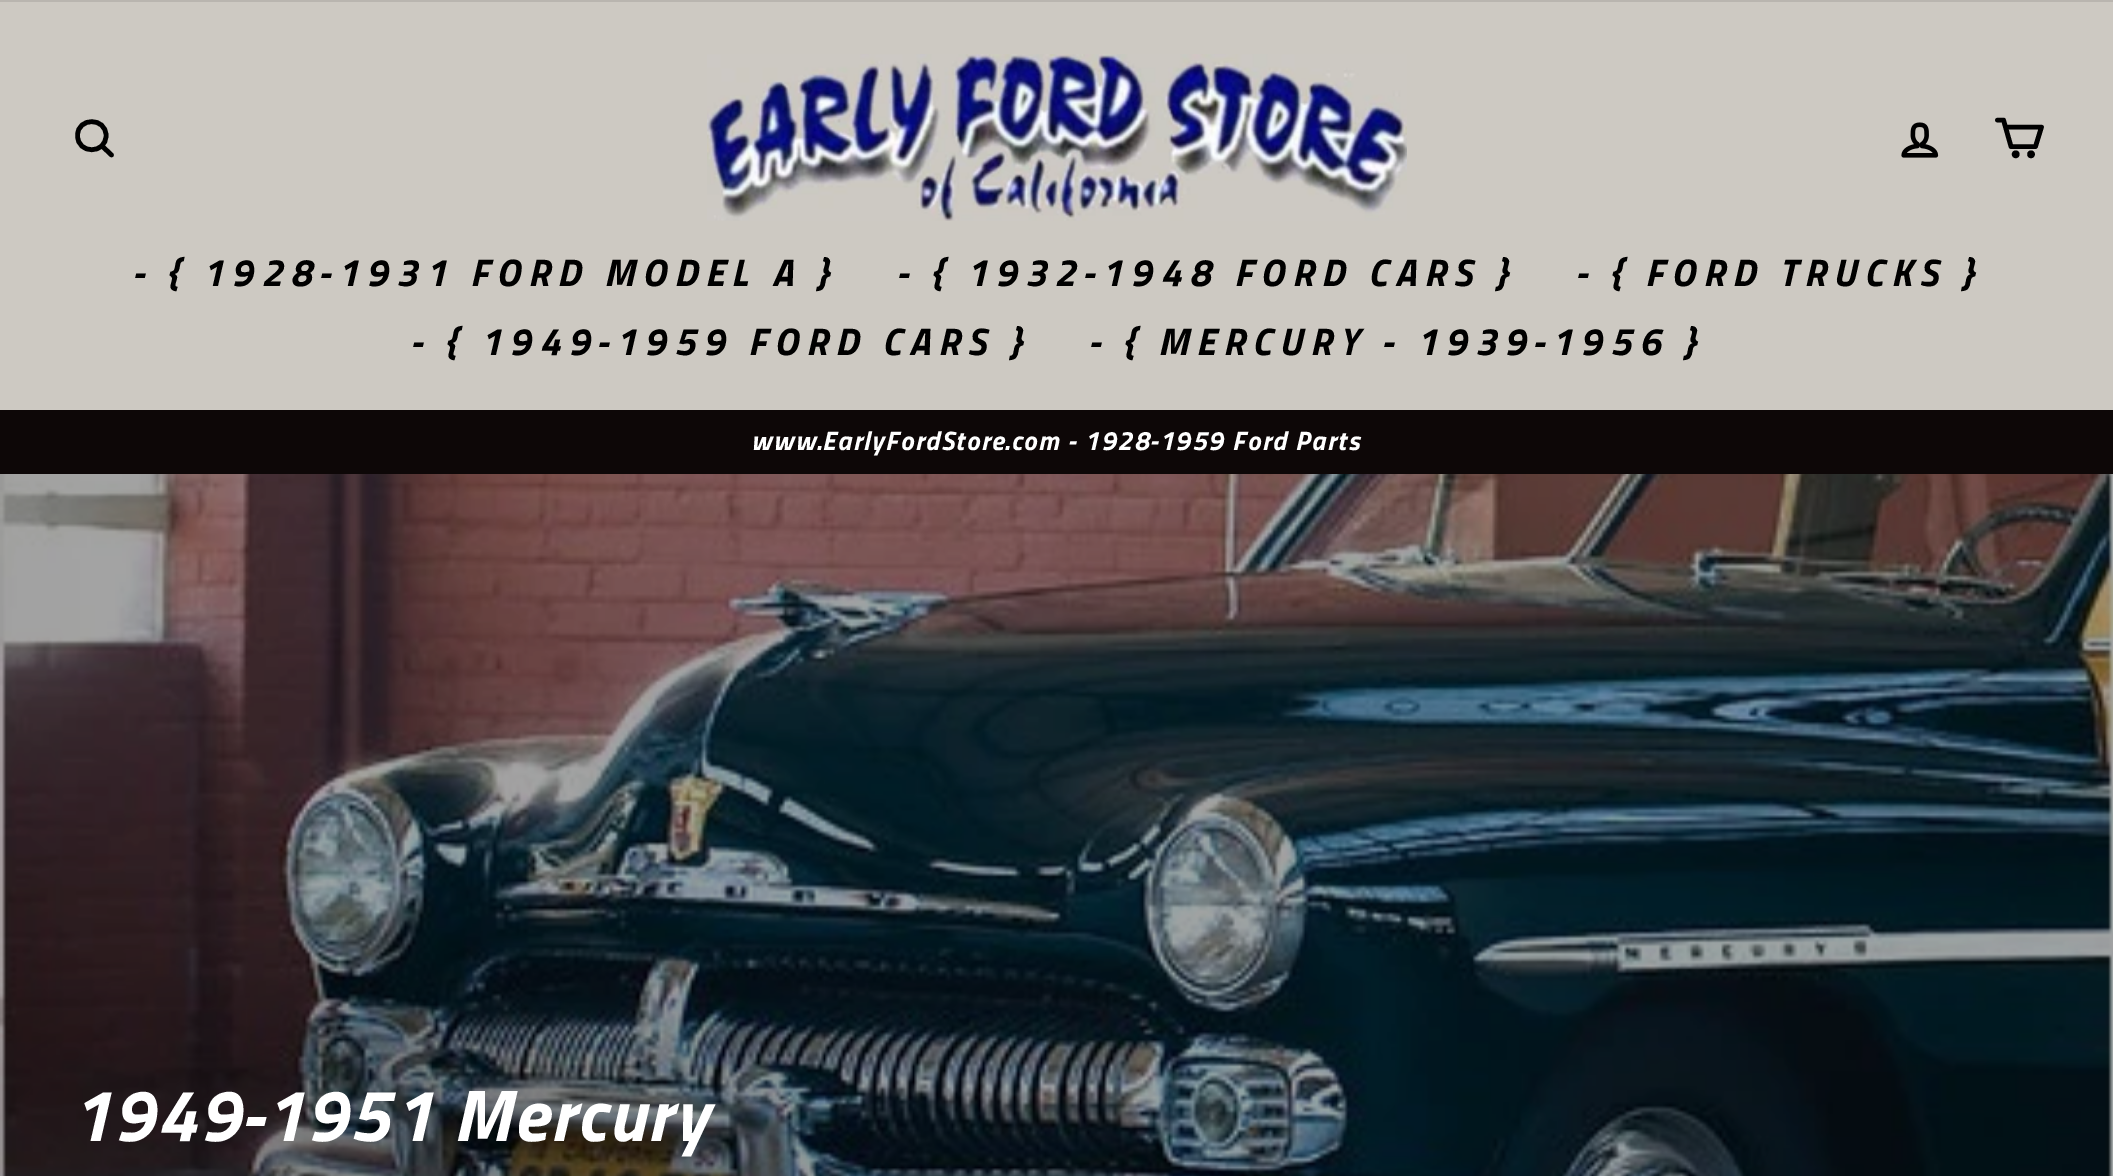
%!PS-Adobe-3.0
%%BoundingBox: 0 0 2113 1176
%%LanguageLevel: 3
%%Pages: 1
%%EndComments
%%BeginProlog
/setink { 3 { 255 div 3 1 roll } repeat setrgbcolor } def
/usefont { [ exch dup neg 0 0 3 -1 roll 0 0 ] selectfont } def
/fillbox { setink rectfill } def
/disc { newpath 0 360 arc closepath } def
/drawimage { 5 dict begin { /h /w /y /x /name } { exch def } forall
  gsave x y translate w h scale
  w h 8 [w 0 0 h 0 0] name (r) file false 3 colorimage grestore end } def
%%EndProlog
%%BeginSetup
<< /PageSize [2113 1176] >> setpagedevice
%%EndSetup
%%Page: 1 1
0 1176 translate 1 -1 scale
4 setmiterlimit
0 0 2113 1176 205 201 194 fillbox
0 0 2113 2 185 181 175 fillbox
0 0 0 setink
4.6 setlinewidth
1 setlinecap
1 setlinejoin
106 135.5 moveto 106 154.5 77.5 154.5 77.5 135.5 curveto 77.5 117 106 117 106 135.5 curveto closepath 111.5 155 moveto 102 146 lineto stroke
(assets/img1.rgb) 707 54 700 167 drawimage
(assets/img2.rgb) 1901 122 38 36 drawimage
2005.5 127 moveto 2041.5 127 lineto 2035.5 146.5 lineto 2011 146.5 lineto 2003.5 120 lineto 1997.5 120 lineto stroke
2015.7 154.3 1.5 disc gsave fill grestore
0 setlinecap
0 setlinejoin
stroke
2031 154.3 1.5 disc gsave fill grestore
stroke
/TitilliumWeb-BoldItalic 38.5 usefont
133 286 moveto 7.7 0 (- { 1928-1931 FORD MODEL A }) ashow
897 286 moveto 7.7 0 (- { 1932-1948 FORD CARS }) ashow
1576 286 moveto 7.7 0 (- { FORD TRUCKS }) ashow
411 355 moveto 7.7 0 (- { 1949-1959 FORD CARS }) ashow
1089 355 moveto 7.7 0 (- { MERCURY - 1939-1956 }) ashow
0 410 2113 64 13 7 7 fillbox
/TitilliumWeb-BoldItalic 26.75 usefont
255 255 255 setink
751 450 moveto 1.55 0 (www.EarlyFordStore.com - 1928-1959 Ford Parts) ashow
(assets/img3.rgb) 0 474 2113 702 drawimage
/TitilliumWeb-BoldItalic 73.5 usefont
70 1141 moveto 1.8 0 (1949-1951 Mercury) ashow
showpage
%%EOF
